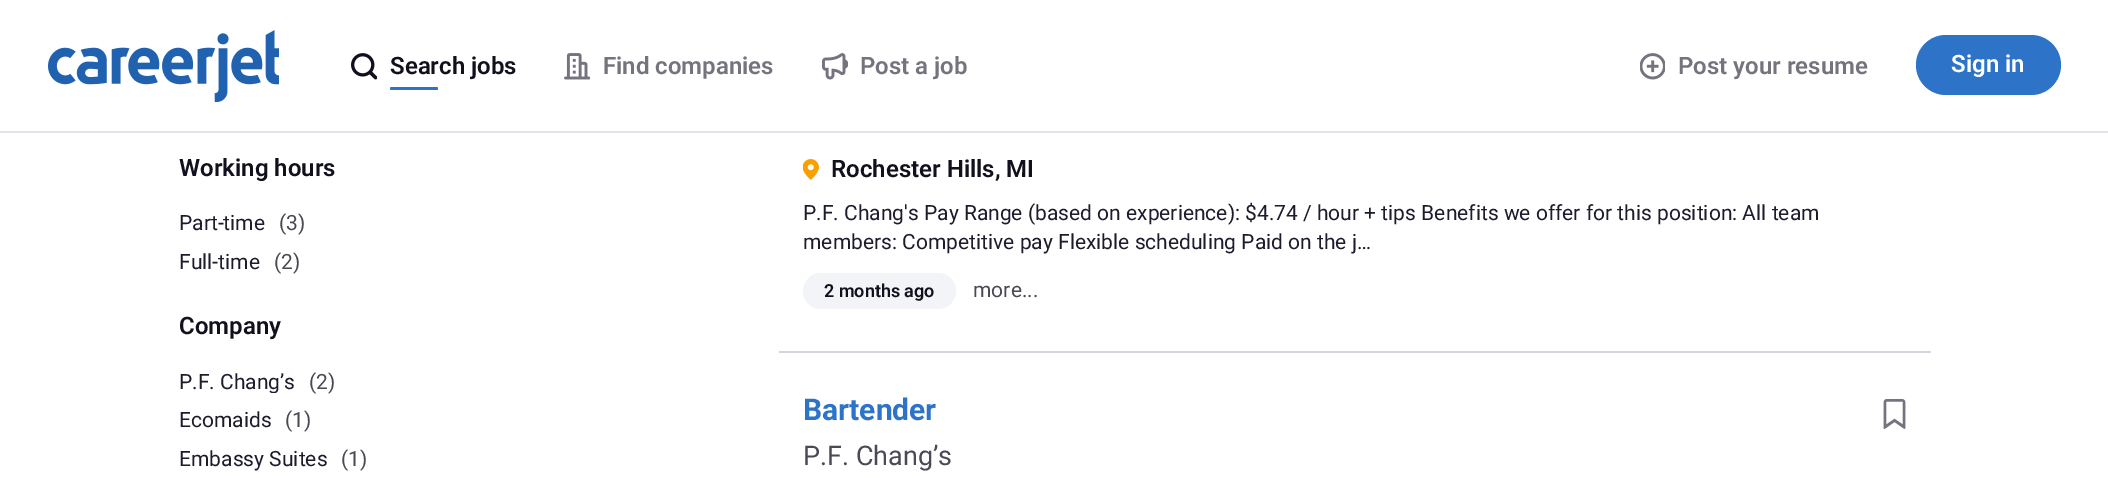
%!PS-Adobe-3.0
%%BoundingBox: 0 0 2108 478
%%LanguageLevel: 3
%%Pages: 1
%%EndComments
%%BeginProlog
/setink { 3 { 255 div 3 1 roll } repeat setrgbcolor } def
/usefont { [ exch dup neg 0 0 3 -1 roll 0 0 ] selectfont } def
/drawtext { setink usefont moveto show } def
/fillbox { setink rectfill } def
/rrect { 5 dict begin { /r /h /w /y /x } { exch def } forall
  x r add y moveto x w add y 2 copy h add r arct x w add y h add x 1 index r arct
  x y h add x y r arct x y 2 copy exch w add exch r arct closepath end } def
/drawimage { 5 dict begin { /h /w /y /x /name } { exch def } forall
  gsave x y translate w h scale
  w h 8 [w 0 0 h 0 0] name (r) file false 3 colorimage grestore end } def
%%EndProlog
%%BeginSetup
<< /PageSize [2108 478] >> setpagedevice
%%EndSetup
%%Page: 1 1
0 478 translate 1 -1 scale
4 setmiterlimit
0 0 2108 478 255 255 255 fillbox
0 131 2108 2 225 227 235 fillbox
(assets/img1.rgb) 48 30 231 72 drawimage
(assets/img2.rgb) 351 53 26 27 drawimage
(Search jobs) 390 74 /Roboto-SemiBold 24 18 16 28 drawtext
45 116 200 setink
390 87 48 3 1.5 rrect fill
(assets/img3.rgb) 564 53 26 27 drawimage
(Find companies) 603 74 /Roboto-SemiBold 24 116 115 126 drawtext
(assets/img4.rgb) 822 53 26 27 drawimage
(Post a job) 860 74 /Roboto-SemiBold 24 116 115 126 drawtext
(assets/img5.rgb) 1640 53 25 27 drawimage
(Post your resume) 1678 74 /Roboto-SemiBold 24 116 115 126 drawtext
45 116 200 setink
1916 35 145 60 30 rrect fill
(Sign in) 1951 72 /Roboto-SemiBold 24 255 255 255 drawtext
(Working hours) 179 176 /Roboto-SemiBold 24 18 16 28 drawtext
(Part-time) 179 230 /Roboto-Regular 21 30 28 44 drawtext
(\(3\)) 279 230 /Roboto-Regular 21 75 73 86 drawtext
(Full-time) 179 269 /Roboto-Regular 21 30 28 44 drawtext
(\(2\)) 274 269 /Roboto-Regular 21 75 73 86 drawtext
(Company) 179 334 /Roboto-SemiBold 24 18 16 28 drawtext
gsave
179 369 117 24 rectclip
(P.F. Chang’s) 179 389 /Roboto-Regular 21 30 28 44 drawtext
grestore
(\(2\)) 309 389 /Roboto-Regular 21 75 73 86 drawtext
(Ecomaids) 179 427 /Roboto-Regular 21 30 28 44 drawtext
(\(1\)) 285 427 /Roboto-Regular 21 75 73 86 drawtext
(Embassy Suites) 179 466 /Roboto-Regular 21 30 28 44 drawtext
(\(1\)) 341 466 /Roboto-Regular 21 75 73 86 drawtext
779 351 1152 2 212 214 222 fillbox
(assets/img6.rgb) 803 159 16 21 drawimage
(Rochester Hills, MI) 831 177 /Roboto-SemiBold 24 18 16 28 drawtext
(P.F. Chang's Pay Range \(based on experience\): $4.74 / hour + tips Benefits we offer for this position: All team) 803 220 /Roboto-Regular 21 30 28 44 drawtext
(members: Competitive pay Flexible scheduling Paid on the j…) 803 249 /Roboto-Regular 21 30 28 44 drawtext
242 244 248 setink
803 273 153 36 18 rrect fill
(2 months ago) 824 297 /Roboto-SemiBold 18 18 16 28 drawtext
(more...) 973 297 /Roboto-Regular 21 75 73 86 drawtext
(Bartender) 803 420 /Roboto-Bold 30 45 116 200 drawtext
(assets/img7.rgb) 1883 399 23 30 drawimage
(P.F. Chang’s) 803 465 /Roboto-Regular 27 75 73 86 drawtext
showpage
%%EOF
